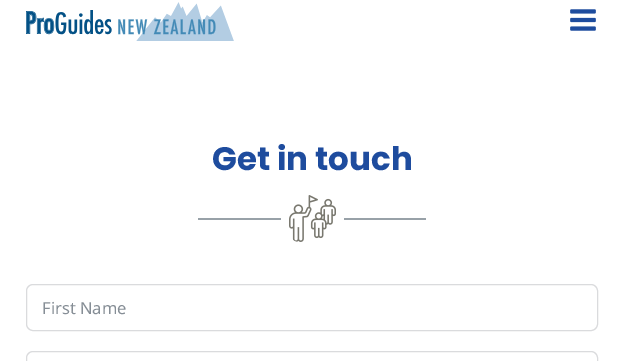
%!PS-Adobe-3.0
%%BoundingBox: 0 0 624 361
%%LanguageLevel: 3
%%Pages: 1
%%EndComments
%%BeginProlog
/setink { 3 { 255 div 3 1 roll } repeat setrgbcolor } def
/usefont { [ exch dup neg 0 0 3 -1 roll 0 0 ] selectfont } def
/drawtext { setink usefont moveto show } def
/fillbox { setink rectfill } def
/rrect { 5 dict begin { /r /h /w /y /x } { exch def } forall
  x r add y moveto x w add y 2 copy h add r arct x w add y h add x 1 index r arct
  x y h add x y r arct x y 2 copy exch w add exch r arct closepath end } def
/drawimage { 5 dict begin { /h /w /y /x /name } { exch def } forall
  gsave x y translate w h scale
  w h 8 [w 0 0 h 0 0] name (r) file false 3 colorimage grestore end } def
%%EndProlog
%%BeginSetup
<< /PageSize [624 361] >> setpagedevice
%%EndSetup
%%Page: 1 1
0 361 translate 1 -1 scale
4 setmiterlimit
0 0 624 361 255 255 255 fillbox
(assets/img1.rgb) 26 2 208 39 drawimage
(assets/img2.rgb) 570 9 26 22 drawimage
(Get in touch) 212 170 /Poppins-Bold 32.5 30 76 158 drawtext
198 218 83 2 152 161 168 fillbox
(assets/img3.rgb) 289 195 47 47 drawimage
344 218 82 2 152 161 168 fillbox
218 219 221 setink
26.5 284.5 571 46 6.5 rrect stroke
(First Name) 42 314 /NotoSans-Regular 16.5 134 142 150 drawtext
218 219 221 setink
26.5 351.5 571 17 6.5 rrect stroke
showpage
%%EOF
